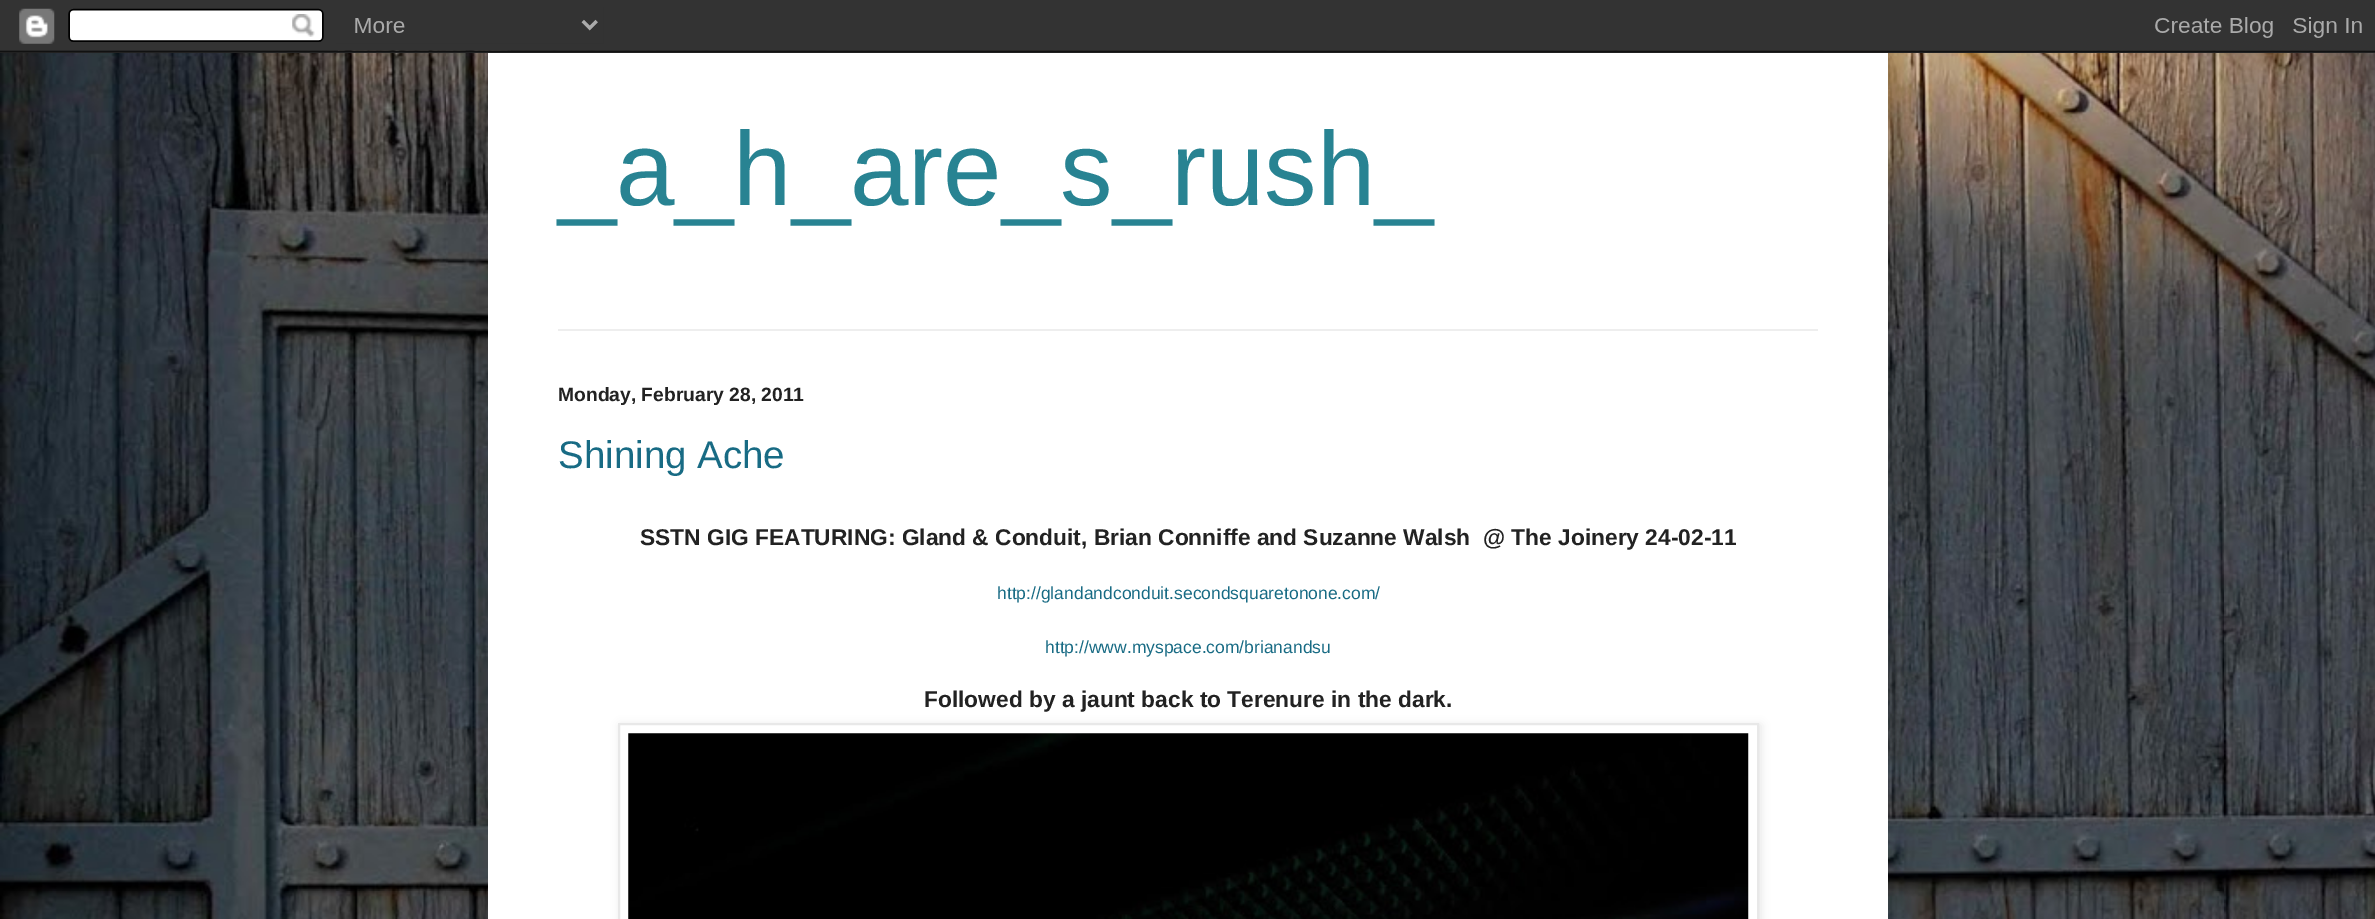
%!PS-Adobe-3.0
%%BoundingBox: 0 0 2375 919
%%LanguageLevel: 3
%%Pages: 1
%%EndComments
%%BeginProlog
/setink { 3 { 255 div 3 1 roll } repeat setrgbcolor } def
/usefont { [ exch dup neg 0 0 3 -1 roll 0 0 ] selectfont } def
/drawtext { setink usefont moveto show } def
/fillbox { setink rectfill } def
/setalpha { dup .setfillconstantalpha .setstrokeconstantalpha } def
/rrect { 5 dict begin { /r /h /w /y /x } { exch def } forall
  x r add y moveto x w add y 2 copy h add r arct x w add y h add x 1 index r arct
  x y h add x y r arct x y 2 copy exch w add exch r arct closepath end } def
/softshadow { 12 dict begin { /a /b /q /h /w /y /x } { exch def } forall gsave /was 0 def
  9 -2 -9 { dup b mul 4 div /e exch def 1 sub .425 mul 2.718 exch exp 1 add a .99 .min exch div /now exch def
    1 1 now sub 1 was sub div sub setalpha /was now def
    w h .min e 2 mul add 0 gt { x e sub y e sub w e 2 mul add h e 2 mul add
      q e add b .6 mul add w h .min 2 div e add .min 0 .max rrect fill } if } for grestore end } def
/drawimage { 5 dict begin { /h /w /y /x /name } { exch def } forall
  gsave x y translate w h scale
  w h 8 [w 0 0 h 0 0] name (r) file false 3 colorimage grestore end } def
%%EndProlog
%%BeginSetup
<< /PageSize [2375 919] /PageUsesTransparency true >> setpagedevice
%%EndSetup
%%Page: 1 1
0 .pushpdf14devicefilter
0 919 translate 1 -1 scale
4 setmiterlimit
0 0 2375 919 255 255 255 fillbox
(assets/img1.rgb) 0 50 2375 869 drawimage
0 0 0 setink
488 53 1400 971 0 35 0.15 softshadow
(assets/img2.rgb) 0 0 2375 53 drawimage
488 53 1400 866 255 255 255 fillbox
(_a_h_are_s_rush_) 558 205 /LiberationSans-Regular 105 40 131 146 drawtext
558 329 1260 2 238 238 238 fillbox
(Monday, February 28, 2011) 558 401 /LiberationSans-Bold 19.25 34 34 34 drawtext
(Shining Ache) 558 468 /LiberationSans-Regular 38.5 24 107 132 drawtext
(SSTN GIG FEATURING: Gland & Conduit, Brian Conniffe and Suzanne Walsh  @ The Joinery 24-02-11) 640 545 /LiberationSans-Bold 22.75 34 34 34 drawtext
(http://glandandconduit.secondsquaretonone.com/) 997 599 /LiberationSans-Regular 17.5 24 107 132 drawtext
(http://www.myspace.com/brianandsu) 1045 653 /LiberationSans-Regular 17.5 24 107 132 drawtext
(Followed by a jaunt back to Terenure in the dark.) 924 707 /LiberationSans-Bold 22.75 34 34 34 drawtext
0 0 0 setink
620 725 1141 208 0 4.5 0.1 softshadow
255 255 255 setink
619 724 moveto 1758 724 lineto 1758 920 lineto 619 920 lineto closepath gsave fill grestore
232 232 232 setink
2 setlinewidth
stroke
(assets/img3.rgb) 628 733 1121 186 drawimage
.poppdf14devicefilter showpage
%%EOF
